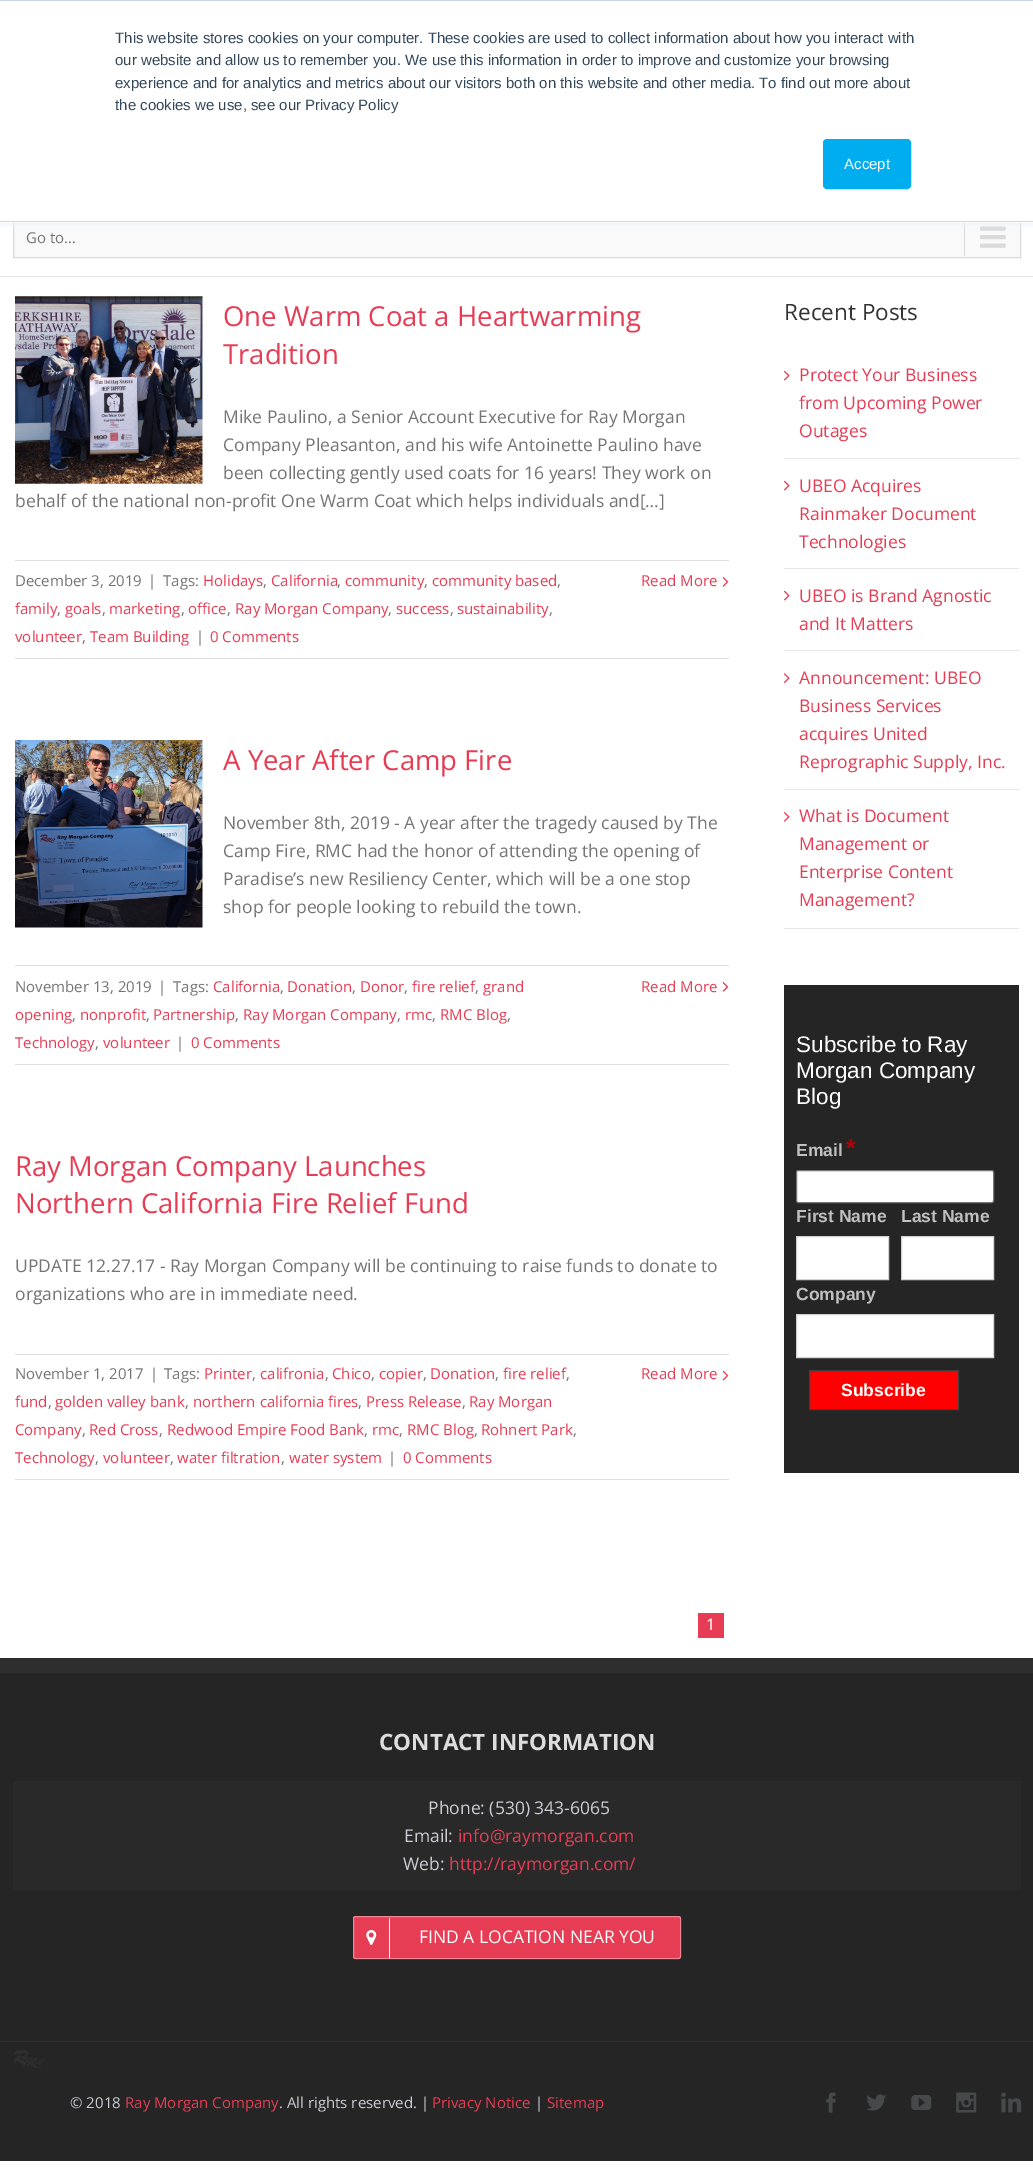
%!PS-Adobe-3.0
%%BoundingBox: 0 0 1033 2181
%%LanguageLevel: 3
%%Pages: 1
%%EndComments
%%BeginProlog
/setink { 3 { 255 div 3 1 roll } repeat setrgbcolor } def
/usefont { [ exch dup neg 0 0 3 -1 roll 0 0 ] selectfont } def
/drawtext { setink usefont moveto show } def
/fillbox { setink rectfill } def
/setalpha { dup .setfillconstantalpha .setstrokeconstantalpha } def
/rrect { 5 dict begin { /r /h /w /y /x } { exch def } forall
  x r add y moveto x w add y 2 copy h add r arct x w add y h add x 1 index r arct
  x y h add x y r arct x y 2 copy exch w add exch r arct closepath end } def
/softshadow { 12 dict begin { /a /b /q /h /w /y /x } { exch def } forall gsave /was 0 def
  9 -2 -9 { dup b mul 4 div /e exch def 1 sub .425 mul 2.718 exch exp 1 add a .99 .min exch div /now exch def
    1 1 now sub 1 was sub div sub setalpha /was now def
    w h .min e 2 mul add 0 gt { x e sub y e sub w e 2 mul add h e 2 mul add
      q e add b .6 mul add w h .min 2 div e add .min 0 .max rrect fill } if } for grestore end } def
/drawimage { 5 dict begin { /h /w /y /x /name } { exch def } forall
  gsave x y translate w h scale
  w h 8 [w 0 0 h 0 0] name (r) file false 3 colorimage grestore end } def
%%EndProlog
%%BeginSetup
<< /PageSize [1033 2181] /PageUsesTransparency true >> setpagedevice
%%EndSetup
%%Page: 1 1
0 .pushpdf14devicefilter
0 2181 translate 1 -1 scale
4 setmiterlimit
0 0 1033 2181 255 255 255 fillbox
14 223 1006 34 249 249 249 fillbox
218 218 218 setink
13.5 216.5 1007 41 rectstroke
964 218 1 38 218 218 218 fillbox
(assets/img1.rgb) 980 226 26 22 drawimage
234 240 246 setink
0 1 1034 223 0 3 1 softshadow
0 1 1033 222 255 255 255 fillbox
0 0 1033 1 203 214 226 fillbox
0 221 1033 1 203 214 226 fillbox
(This website stores cookies on your computer. These cookies are used to collect information about how you interact with) 115 43 /LiberationSans-Regular 15 51 71 91 drawtext
(our website and allow us to remember you. We use this information in order to improve and customize your browsing) 115 65 /LiberationSans-Regular 15 51 71 91 drawtext
(experience and for analytics and metrics about our visitors both on this website and other media. To find out more about) 115 88 /LiberationSans-Regular 15 51 71 91 drawtext
(the cookies we use, see our Privacy Policy) 115 110 /LiberationSans-Regular 15 51 71 91 drawtext
0 174 239 setink
823.5 139.5 87 49 3.5 rrect gsave fill grestore
stroke
(Accept) 844 169 /LiberationSans-Regular 15 255 255 255 drawtext
0 276 1033 1 229 229 229 fillbox
(Go to...) 26 243 /OpenSans-Regular 15 116 116 116 drawtext
(assets/img2.rgb) 15 296 188 188 drawimage
(One Warm Coat a Heartwarming) 223 326 /OpenSans-Regular 27.5 230 60 84 drawtext
(Tradition) 223 364 /OpenSans-Regular 27.5 230 60 84 drawtext
(Mike Paulino, a Senior Account Executive for Ray Morgan) 223 423 /OpenSans-Regular 17.5 116 116 116 drawtext
(Company Pleasanton, and his wife Antoinette Paulino have) 223 451 /OpenSans-Regular 17.5 116 116 116 drawtext
(been collecting gently used coats for 16 years! They work on) 223 479 /OpenSans-Regular 17.5 116 116 116 drawtext
(behalf of the national non-profit One Warm Coat which helps individuals and[…]) 15 507 /OpenSans-Regular 17.5 116 116 116 drawtext
15 560 714 1 224 222 222 fillbox
15 658 714 1 224 222 222 fillbox
(December 3, 2019) 15 586 /OpenSans-Regular 15 116 116 116 drawtext
(|) 148 586 /OpenSans-Regular 15 116 116 116 drawtext
(Tags:) 163 586 /OpenSans-Regular 15 116 116 116 drawtext
(Holidays) 203 586 /OpenSans-Regular 15 230 60 84 drawtext
(,) 263 586 /OpenSans-Regular 15 116 116 116 drawtext
(California) 271 586 /OpenSans-Regular 15 230 60 84 drawtext
(,) 337 586 /OpenSans-Regular 15 116 116 116 drawtext
(community) 345 586 /OpenSans-Regular 15 230 60 84 drawtext
(,) 424 586 /OpenSans-Regular 15 116 116 116 drawtext
(community based) 432 586 /OpenSans-Regular 15 230 60 84 drawtext
(,) 557 586 /OpenSans-Regular 15 116 116 116 drawtext
(family) 15 614 /OpenSans-Regular 15 230 60 84 drawtext
(,) 57 614 /OpenSans-Regular 15 116 116 116 drawtext
(goals) 65 614 /OpenSans-Regular 15 230 60 84 drawtext
(,) 102 614 /OpenSans-Regular 15 116 116 116 drawtext
(marketing) 109 614 /OpenSans-Regular 15 230 60 84 drawtext
(,) 181 614 /OpenSans-Regular 15 116 116 116 drawtext
(office) 188 614 /OpenSans-Regular 15 230 60 84 drawtext
(,) 227 614 /OpenSans-Regular 15 116 116 116 drawtext
(Ray Morgan Company) 235 614 /OpenSans-Regular 15 230 60 84 drawtext
(,) 388 614 /OpenSans-Regular 15 116 116 116 drawtext
(success) 396 614 /OpenSans-Regular 15 230 60 84 drawtext
(,) 450 614 /OpenSans-Regular 15 116 116 116 drawtext
(sustainability) 457 614 /OpenSans-Regular 15 230 60 84 drawtext
(,) 549 614 /OpenSans-Regular 15 116 116 116 drawtext
(volunteer) 15 642 /OpenSans-Regular 15 230 60 84 drawtext
(,) 82 642 /OpenSans-Regular 15 116 116 116 drawtext
(Team Building) 90 642 /OpenSans-Regular 15 230 60 84 drawtext
(|) 196 642 /OpenSans-Regular 15 116 116 116 drawtext
(0 Comments) 210 642 /OpenSans-Regular 15 230 60 84 drawtext
(Read More) 641 586 /OpenSans-Regular 15 230 60 84 drawtext
(assets/img3.rgb) 722 577 7 10 drawimage
(assets/img4.rgb) 15 740 188 188 drawimage
(A Year After Camp Fire) 223 770 /OpenSans-Regular 27.5 230 60 84 drawtext
(November 8th, 2019 - A year after the tragedy caused by The) 223 829 /OpenSans-Regular 17.5 116 116 116 drawtext
(Camp Fire, RMC had the honor of attending the opening of) 223 857 /OpenSans-Regular 17.5 116 116 116 drawtext
(Paradise’s new Resiliency Center, which will be a one stop) 223 885 /OpenSans-Regular 17.5 116 116 116 drawtext
(shop for people looking to rebuild the town.) 223 913 /OpenSans-Regular 17.5 116 116 116 drawtext
15 965 714 1 224 222 222 fillbox
15 1064 714 1 224 222 222 fillbox
(November 13, 2019) 15 992 /OpenSans-Regular 15 116 116 116 drawtext
(|) 158 992 /OpenSans-Regular 15 116 116 116 drawtext
(Tags:) 173 992 /OpenSans-Regular 15 116 116 116 drawtext
(California) 213 992 /OpenSans-Regular 15 230 60 84 drawtext
(,) 280 992 /OpenSans-Regular 15 116 116 116 drawtext
(Donation) 287 992 /OpenSans-Regular 15 230 60 84 drawtext
(,) 352 992 /OpenSans-Regular 15 116 116 116 drawtext
(Donor) 360 992 /OpenSans-Regular 15 230 60 84 drawtext
(,) 404 992 /OpenSans-Regular 15 116 116 116 drawtext
(fire relief) 412 992 /OpenSans-Regular 15 230 60 84 drawtext
(,) 475 992 /OpenSans-Regular 15 116 116 116 drawtext
(grand) 483 992 /OpenSans-Regular 15 230 60 84 drawtext
(opening) 15 1020 /OpenSans-Regular 15 230 60 84 drawtext
(,) 72 1020 /OpenSans-Regular 15 116 116 116 drawtext
(nonprofit) 80 1020 /OpenSans-Regular 15 230 60 84 drawtext
(,) 146 1020 /OpenSans-Regular 15 116 116 116 drawtext
(Partnership) 153 1020 /OpenSans-Regular 15 230 60 84 drawtext
(,) 235 1020 /OpenSans-Regular 15 116 116 116 drawtext
(Ray Morgan Company) 243 1020 /OpenSans-Regular 15 230 60 84 drawtext
(,) 397 1020 /OpenSans-Regular 15 116 116 116 drawtext
(rmc) 405 1020 /OpenSans-Regular 15 230 60 84 drawtext
(,) 432 1020 /OpenSans-Regular 15 116 116 116 drawtext
(RMC Blog) 440 1020 /OpenSans-Regular 15 230 60 84 drawtext
(,) 507 1020 /OpenSans-Regular 15 116 116 116 drawtext
(Technology) 15 1048 /OpenSans-Regular 15 230 60 84 drawtext
(,) 95 1048 /OpenSans-Regular 15 116 116 116 drawtext
(volunteer) 103 1048 /OpenSans-Regular 15 230 60 84 drawtext
(|) 176 1048 /OpenSans-Regular 15 116 116 116 drawtext
(0 Comments) 191 1048 /OpenSans-Regular 15 230 60 84 drawtext
(Read More) 641 992 /OpenSans-Regular 15 230 60 84 drawtext
(assets/img3.rgb) 722 982 7 10 drawimage
(Ray Morgan Company Launches) 15 1176 /OpenSans-Regular 27.5 230 60 84 drawtext
(Northern California Fire Relief Fund) 15 1213 /OpenSans-Regular 27.5 230 60 84 drawtext
(UPDATE 12.27.17 - Ray Morgan Company will be continuing to raise funds to donate to) 15 1272 /OpenSans-Regular 17.5 116 116 116 drawtext
(organizations who are in immediate need.) 15 1300 /OpenSans-Regular 17.5 116 116 116 drawtext
15 1354 714 1 224 222 222 fillbox
15 1479 714 1 224 222 222 fillbox
(November 1, 2017) 15 1379 /OpenSans-Regular 15 116 116 116 drawtext
(|) 150 1379 /OpenSans-Regular 15 116 116 116 drawtext
(Tags:) 164 1379 /OpenSans-Regular 15 116 116 116 drawtext
(Printer) 204 1379 /OpenSans-Regular 15 230 60 84 drawtext
(,) 252 1379 /OpenSans-Regular 15 116 116 116 drawtext
(califronia) 260 1379 /OpenSans-Regular 15 230 60 84 drawtext
(,) 325 1379 /OpenSans-Regular 15 116 116 116 drawtext
(Chico) 332 1379 /OpenSans-Regular 15 230 60 84 drawtext
(,) 371 1379 /OpenSans-Regular 15 116 116 116 drawtext
(copier) 379 1379 /OpenSans-Regular 15 230 60 84 drawtext
(,) 423 1379 /OpenSans-Regular 15 116 116 116 drawtext
(Donation) 430 1379 /OpenSans-Regular 15 230 60 84 drawtext
(,) 495 1379 /OpenSans-Regular 15 116 116 116 drawtext
(fire relief) 503 1379 /OpenSans-Regular 15 230 60 84 drawtext
(,) 566 1379 /OpenSans-Regular 15 116 116 116 drawtext
(fund) 15 1407 /OpenSans-Regular 15 230 60 84 drawtext
(,) 48 1407 /OpenSans-Regular 15 116 116 116 drawtext
(golden valley bank) 55 1407 /OpenSans-Regular 15 230 60 84 drawtext
(,) 185 1407 /OpenSans-Regular 15 116 116 116 drawtext
(northern california fires) 193 1407 /OpenSans-Regular 15 230 60 84 drawtext
(,) 358 1407 /OpenSans-Regular 15 116 116 116 drawtext
(Press Release) 366 1407 /OpenSans-Regular 15 230 60 84 drawtext
(,) 462 1407 /OpenSans-Regular 15 116 116 116 drawtext
(Ray Morgan) 469 1407 /OpenSans-Regular 15 230 60 84 drawtext
(Company) 15 1435 /OpenSans-Regular 15 230 60 84 drawtext
(,) 82 1435 /OpenSans-Regular 15 116 116 116 drawtext
(Red Cross) 89 1435 /OpenSans-Regular 15 230 60 84 drawtext
(,) 159 1435 /OpenSans-Regular 15 116 116 116 drawtext
(Redwood Empire Food Bank) 167 1435 /OpenSans-Regular 15 230 60 84 drawtext
(,) 364 1435 /OpenSans-Regular 15 116 116 116 drawtext
(rmc) 372 1435 /OpenSans-Regular 15 230 60 84 drawtext
(,) 399 1435 /OpenSans-Regular 15 116 116 116 drawtext
(RMC Blog) 407 1435 /OpenSans-Regular 15 230 60 84 drawtext
(,) 474 1435 /OpenSans-Regular 15 116 116 116 drawtext
(Rohnert Park) 481 1435 /OpenSans-Regular 15 230 60 84 drawtext
(,) 573 1435 /OpenSans-Regular 15 116 116 116 drawtext
(Technology) 15 1463 /OpenSans-Regular 15 230 60 84 drawtext
(,) 95 1463 /OpenSans-Regular 15 116 116 116 drawtext
(volunteer) 103 1463 /OpenSans-Regular 15 230 60 84 drawtext
(,) 170 1463 /OpenSans-Regular 15 116 116 116 drawtext
(water filtration) 177 1463 /OpenSans-Regular 15 230 60 84 drawtext
(,) 281 1463 /OpenSans-Regular 15 116 116 116 drawtext
(water system) 289 1463 /OpenSans-Regular 15 230 60 84 drawtext
(|) 388 1463 /OpenSans-Regular 15 116 116 116 drawtext
(0 Comments) 403 1463 /OpenSans-Regular 15 230 60 84 drawtext
(Read More) 641 1379 /OpenSans-Regular 15 230 60 84 drawtext
(assets/img5.rgb) 722 1370 7 11 drawimage
698 1613 26 25 230 60 84 fillbox
(1) 706 1630 /OpenSans-Regular 16 255 255 255 drawtext
(Recent Posts) 784 320 /OpenSans-Regular 22.5 51 51 51 drawtext
784 458 235 1 231 230 230 fillbox
(assets/img6.rgb) 783 370 7 11 drawimage
(Protect Your Business) 799 381 /OpenSans-Regular 17.5 230 60 84 drawtext
(from Upcoming Power) 799 409 /OpenSans-Regular 17.5 230 60 84 drawtext
(Outages) 799 437 /OpenSans-Regular 17.5 230 60 84 drawtext
784 568 235 1 231 230 230 fillbox
(assets/img6.rgb) 783 480 7 11 drawimage
(UBEO Acquires) 799 492 /OpenSans-Regular 17.5 230 60 84 drawtext
(Rainmaker Document) 799 520 /OpenSans-Regular 17.5 230 60 84 drawtext
(Technologies) 799 548 /OpenSans-Regular 17.5 230 60 84 drawtext
784 650 235 1 231 230 230 fillbox
(assets/img6.rgb) 783 590 7 11 drawimage
(UBEO is Brand Agnostic) 799 602 /OpenSans-Regular 17.5 230 60 84 drawtext
(and It Matters) 799 630 /OpenSans-Regular 17.5 230 60 84 drawtext
784 789 235 1 231 230 230 fillbox
(assets/img7.rgb) 783 673 7 10 drawimage
(Announcement: UBEO) 799 684 /OpenSans-Regular 17.5 230 60 84 drawtext
(Business Services) 799 712 /OpenSans-Regular 17.5 230 60 84 drawtext
(acquires United) 799 740 /OpenSans-Regular 17.5 230 60 84 drawtext
(Reprographic Supply, Inc.) 799 768 /OpenSans-Regular 17.5 230 60 84 drawtext
784 928 235 1 231 230 230 fillbox
(assets/img8.rgb) 783 812 7 10 drawimage
(What is Document) 799 822 /OpenSans-Regular 17.5 230 60 84 drawtext
(Management or) 799 850 /OpenSans-Regular 17.5 230 60 84 drawtext
(Enterprise Content) 799 878 /OpenSans-Regular 17.5 230 60 84 drawtext
(Management?) 799 906 /OpenSans-Regular 17.5 230 60 84 drawtext
784 985 235 488 37 37 37 fillbox
(Subscribe to Ray) 796 1052 /LiberationSans-Regular 22.5 255 255 255 drawtext
(Morgan Company) 796 1078 /LiberationSans-Regular 22.5 255 255 255 drawtext
(Blog) 796 1104 /LiberationSans-Regular 22.5 255 255 255 drawtext
(Email) 796 1156 /LiberationSans-Bold 17.5 192 192 192 drawtext
(*) 846 1156 /LiberationSans-Bold 24 186 0 0 drawtext
255 255 255 setink
796.5 1170.5 197 32 2 rrect gsave fill grestore
118 118 118 setink
stroke
(First Name) 796 1222 /LiberationSans-Bold 17.5 192 192 192 drawtext
255 255 255 setink
796.5 1236.5 moveto 888.5 1236.5 lineto 888.5 1279.5 lineto 796.5 1279.5 lineto closepath gsave fill grestore
210 210 210 setink
stroke
(Last Name) 901 1222 /LiberationSans-Bold 17.5 192 192 192 drawtext
255 255 255 setink
901.5 1236.5 moveto 993.5 1236.5 lineto 993.5 1279.5 lineto 901.5 1279.5 lineto closepath gsave fill grestore
210 210 210 setink
stroke
(Company) 796 1300 /LiberationSans-Bold 17.5 192 192 192 drawtext
255 255 255 setink
796.5 1314.5 moveto 993.5 1314.5 lineto 993.5 1357.5 lineto 796.5 1357.5 lineto closepath gsave fill grestore
210 210 210 setink
stroke
255 0 0 setink
809.5 1370.5 moveto 958.5 1370.5 lineto 958.5 1409.5 lineto 809.5 1409.5 lineto closepath gsave fill grestore
64 64 64 setink
stroke
(Subscribe) 841 1396 /LiberationSans-Bold 17.5 255 255 255 drawtext
0 1673 1033 488 37 37 37 fillbox
0 1658 1033 15 46 46 46 fillbox
(CONTACT INFORMATION) 379 1750 /OpenSans-Bold 22.5 221 221 221 drawtext
13 1781 1008 109 41 41 41 fillbox
(Phone: \(530\) 343-6065) 428 1814 /OpenSans-Regular 17.5 204 204 213 drawtext
(Email:) 404 1842 /OpenSans-Regular 17.5 204 204 213 drawtext
(info@raymorgan.com) 458 1842 /OpenSans-Regular 17.5 230 60 84 drawtext
(Web:) 403 1870 /OpenSans-Regular 17.5 204 204 213 drawtext
(http://raymorgan.com/) 449 1870 /OpenSans-Regular 17.5 230 60 84 drawtext
353 1916 328 43 2.5 rrect fill
0.38 setalpha
255 255 255 setink
353.5 1916.5 327 42 2 rrect stroke
1 setalpha
389 1918 1 40 255 255 255 fillbox
(assets/img9.rgb) 366 1930 11 15 drawimage
(FIND A LOCATION NEAR YOU) 419 1943 /OpenSans-Regular 17.5 255 255 255 drawtext
0 2041 1033 1 46 46 46 fillbox
(assets/img10.rgb) 13 2050 31 18 drawimage
(© 2018) 70 2108 /OpenSans-Regular 15 204 204 213 drawtext
(Ray Morgan Company) 125 2108 /OpenSans-Regular 15 230 60 84 drawtext
(. All rights reserved. |) 279 2108 /OpenSans-Regular 15 204 204 213 drawtext
(Privacy Notice) 432 2108 /OpenSans-Regular 15 230 60 84 drawtext
(|) 535 2108 /OpenSans-Regular 15 204 204 213 drawtext
(Sitemap) 547 2108 /OpenSans-Regular 15 230 60 84 drawtext
(assets/img11.rgb) 826 2092 10 21 drawimage
(assets/img12.rgb) 866 2094 20 17 drawimage
(assets/img13.rgb) 911 2095 21 15 drawimage
(assets/img14.rgb) 956 2092 21 21 drawimage
(assets/img15.rgb) 1001 2092 21 21 drawimage
.poppdf14devicefilter showpage
%%EOF
